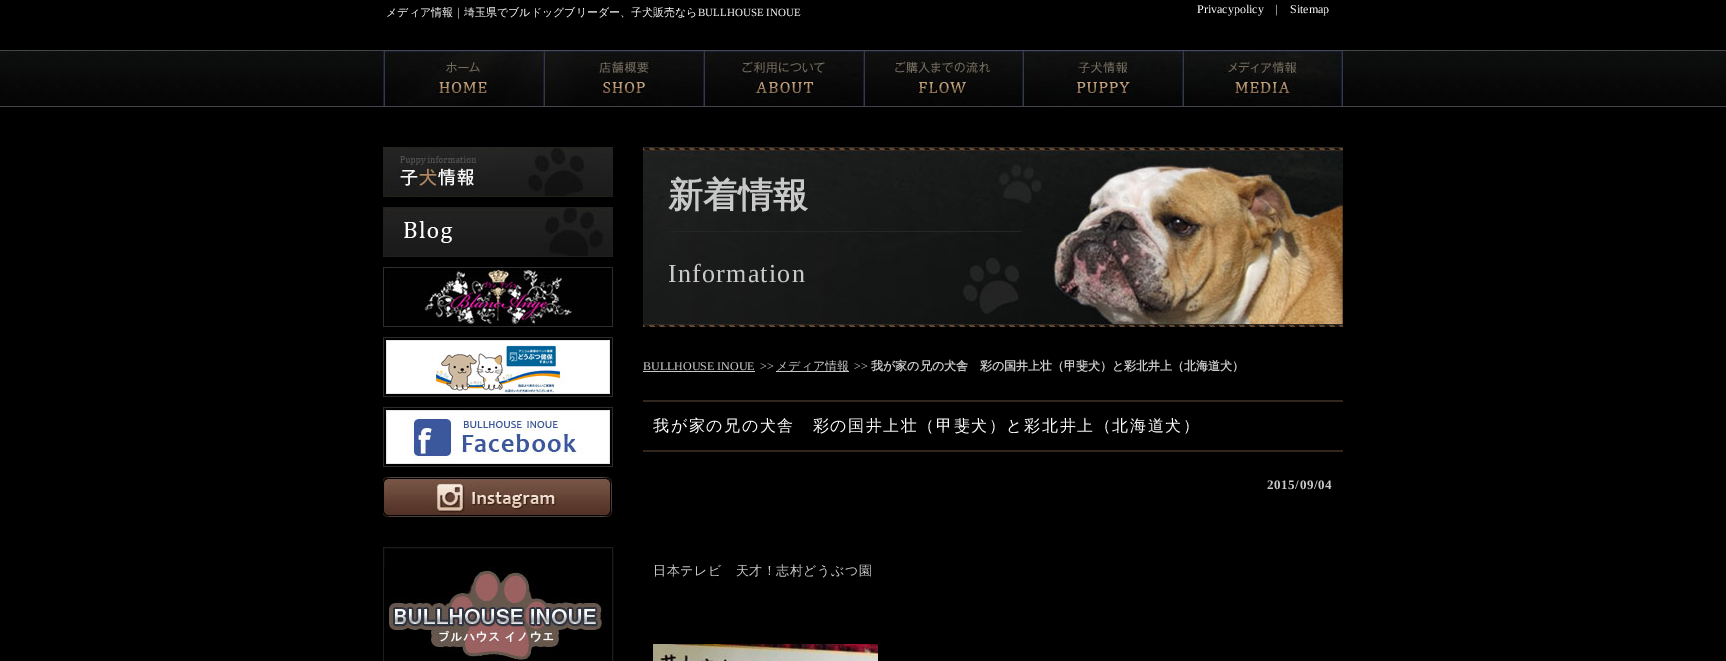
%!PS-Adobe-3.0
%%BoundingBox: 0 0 1726 661
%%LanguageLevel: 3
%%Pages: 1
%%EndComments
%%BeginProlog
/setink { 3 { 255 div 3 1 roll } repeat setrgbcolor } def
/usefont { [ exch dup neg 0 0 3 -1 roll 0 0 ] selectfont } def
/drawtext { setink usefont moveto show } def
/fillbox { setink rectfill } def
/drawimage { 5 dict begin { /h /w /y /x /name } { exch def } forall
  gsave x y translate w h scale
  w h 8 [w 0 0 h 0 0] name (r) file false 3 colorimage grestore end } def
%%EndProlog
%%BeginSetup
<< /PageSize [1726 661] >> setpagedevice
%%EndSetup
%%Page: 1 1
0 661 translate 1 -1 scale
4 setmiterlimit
0 0 1726 661 0 0 0 fillbox
(メディア情報｜埼玉県でブルドッグブリーダー、子犬販売なら) 386 16 /WenQuanYiZenHei-Medium 11 255 255 255 drawtext
(BULLHOUSE INOUE) 698 16 /LiberationSerif-Regular 11 255 255 255 drawtext
(Privacypolicy) 1197 13 /LiberationSerif-Regular 12 255 255 255 drawtext
(|) 1275 13 /LiberationSerif-Regular 12 255 255 255 drawtext
(Sitemap) 1290 13 /LiberationSerif-Regular 12 255 255 255 drawtext
(assets/img1.rgb) 0 50 1726 57 drawimage
(assets/img2.rgb) 383 50 160 57 drawimage
(assets/img3.rgb) 543 50 160 57 drawimage
(assets/img4.rgb) 703 50 160 56 drawimage
(assets/img5.rgb) 863 50 160 56 drawimage
(assets/img6.rgb) 1023 50 160 56 drawimage
(assets/img7.rgb) 1183 50 160 56 drawimage
(assets/img8.rgb) 383 147 230 50 drawimage
(assets/img9.rgb) 383 207 230 50 drawimage
(assets/img10.rgb) 383 267 230 60 drawimage
(assets/img11.rgb) 383 337 230 60 drawimage
(assets/img12.rgb) 383 407 230 60 drawimage
(assets/img13.rgb) 383 477 230 40 drawimage
30 27 24 setink
383.5 547.5 229 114 rectstroke
(assets/img14.rgb) 384 567 224 94 drawimage
(assets/img15.rgb) 643 147 700 180 drawimage
(新着情報) 668 207 /WenQuanYiZenHei-Bold 35 201 201 201 drawtext
/LiberationSerif-Regular 26 usefont
668 282 moveto 1.25 0 (Information) ashow
(BULLHOUSE INOUE) 643 370 /LiberationSerif-Regular 12 201 201 201 drawtext
643 371 112 1 201 201 201 fillbox
(>>) 760 370 /LiberationSerif-Regular 12 201 201 201 drawtext
776 371 73 1 201 201 201 fillbox
(メディア情報) 776 370 /WenQuanYiZenHei-Medium 12 201 201 201 drawtext
(>>) 854 370 /LiberationSerif-Regular 12 201 201 201 drawtext
(我が家の兄の犬舎　彩の国井上壮（甲斐犬）と彩北井上（北海道犬）) 871 370 /WenQuanYiZenHei-Bold 12 201 201 201 drawtext
643 400 700 2 49 39 30 fillbox
643 450 700 2 49 39 30 fillbox
/WenQuanYiZenHei-Medium 16 usefont
255 255 255 setink
653 431 moveto 1.6 0 (我が家の兄の犬舎　彩の国井上壮（甲斐犬）と彩北井上（北海道犬）) ashow
/LiberationSerif-Bold 13 usefont
201 201 201 setink
1267 489 moveto 0.6 0 (2015/09/04) ashow
/WenQuanYiZenHei-Medium 13 usefont
653 575 moveto 0.6 0 (日本テレビ　天才！志村どうぶつ園) ashow
(assets/img16.rgb) 653 644 225 17 drawimage
showpage
%%EOF
